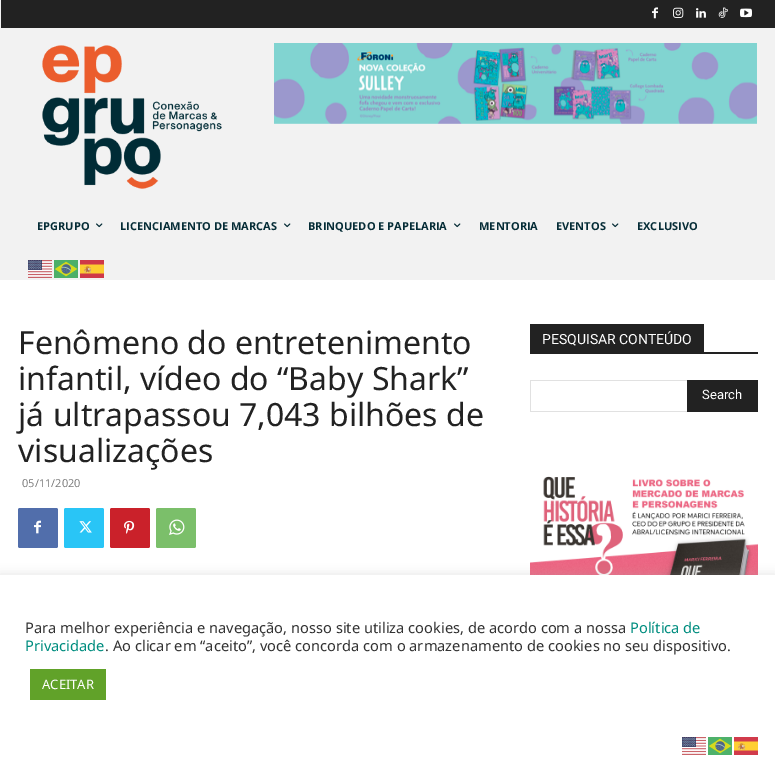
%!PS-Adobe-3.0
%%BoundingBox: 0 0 775 770
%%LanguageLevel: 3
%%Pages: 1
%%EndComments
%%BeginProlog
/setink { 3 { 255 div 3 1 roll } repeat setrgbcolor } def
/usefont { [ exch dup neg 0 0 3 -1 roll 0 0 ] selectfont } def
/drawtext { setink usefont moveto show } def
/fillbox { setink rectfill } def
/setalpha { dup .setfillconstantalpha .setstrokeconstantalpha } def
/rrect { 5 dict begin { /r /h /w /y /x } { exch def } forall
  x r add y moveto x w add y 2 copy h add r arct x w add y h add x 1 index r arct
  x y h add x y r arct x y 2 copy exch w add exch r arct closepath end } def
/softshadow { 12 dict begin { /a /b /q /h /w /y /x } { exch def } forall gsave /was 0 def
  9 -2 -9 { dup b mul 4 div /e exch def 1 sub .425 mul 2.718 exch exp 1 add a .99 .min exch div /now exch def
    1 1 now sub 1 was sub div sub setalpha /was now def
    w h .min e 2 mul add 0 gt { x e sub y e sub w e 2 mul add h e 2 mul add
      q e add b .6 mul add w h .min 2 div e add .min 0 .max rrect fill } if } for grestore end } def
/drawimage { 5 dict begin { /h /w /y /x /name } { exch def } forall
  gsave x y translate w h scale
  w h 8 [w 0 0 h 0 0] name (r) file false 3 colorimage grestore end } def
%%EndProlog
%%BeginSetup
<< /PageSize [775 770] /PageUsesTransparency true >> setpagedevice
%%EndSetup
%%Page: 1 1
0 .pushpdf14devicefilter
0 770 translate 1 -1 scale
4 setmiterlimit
0 0 775 770 255 255 255 fillbox
0 0 775 280 242 242 242 fillbox
1 0 774 28 34 34 34 fillbox
(assets/img1.rgb) 652 7 6 12 drawimage
(assets/img2.rgb) 673 7 11 11 drawimage
(assets/img3.rgb) 696 8 10 10 drawimage
(assets/img4.rgb) 718 7 10 11 drawimage
(assets/img5.rgb) 740 8 12 10 drawimage
(assets/img6.rgb) 42 45 180 144 drawimage
(assets/img7.rgb) 274 43 483 81 drawimage
(EPGRUPO) 37 230 /OpenSans-Bold 11 5 44 54 drawtext
(assets/img8.rgb) 96 223 7 5 drawimage
(LICENCIAMENTO DE MARCAS) 120 230 /OpenSans-Bold 11 5 44 54 drawtext
(assets/img8.rgb) 284 223 7 5 drawimage
(BRINQUEDO E PAPELARIA) 308 230 /OpenSans-Bold 11 5 44 54 drawtext
(assets/img8.rgb) 454 223 7 5 drawimage
(MENTORIA) 479 230 /OpenSans-Bold 11 5 44 54 drawtext
(EVENTOS) 556 230 /OpenSans-Bold 11 5 44 54 drawtext
(assets/img8.rgb) 612 223 7 5 drawimage
(EXCLUSIVO) 637 230 /OpenSans-Bold 11 5 44 54 drawtext
(assets/img9.rgb) 28 260 24 18 drawimage
(assets/img10.rgb) 54 260 24 18 drawimage
(assets/img11.rgb) 80 260 24 18 drawimage
(Fenômeno do entretenimento) 18 354 /NotoSans-Regular 32 34 34 34 drawtext
(infantil, vídeo do “Baby Shark”) 18 390 /NotoSans-Regular 32 34 34 34 drawtext
(já ultrapassou 7,043 bilhões de) 18 426 /NotoSans-Regular 32 34 34 34 drawtext
(visualizações) 18 462 /NotoSans-Regular 32 34 34 34 drawtext
(05/11/2020) 22 487 /OpenSans-Regular 11 118 118 118 drawtext
81 110 171 setink
18 508 40 40 2 rrect fill
(assets/img12.rgb) 34 520 7 14 drawimage
41 197 246 setink
64 508 40 40 2 rrect fill
(assets/img13.rgb) 79 521 13 12 drawimage
202 33 42 setink
110 508 40 40 2 rrect fill
(assets/img14.rgb) 124 520 11 14 drawimage
123 191 106 setink
156 508 40 40 2 rrect fill
(assets/img15.rgb) 169 519 16 16 drawimage
530 352 228 2 34 34 34 fillbox
530 324 174 28 34 34 34 fillbox
(PESQUISAR CONTEÚDO) 542 344 /Roboto-Regular 14 255 255 255 drawtext
530 380 157 1 225 225 225 fillbox
530 411 157 1 225 225 225 fillbox
530 380 1 32 225 225 225 fillbox
687 380 71 32 34 34 34 fillbox
(Search) 702 399 /Roboto-Regular 13 255 255 255 drawtext
(assets/img16.rgb) 530 476 228 99 drawimage
172 171 171 setink
0 574 775 195 0 5 0.3 softshadow
0 575 775 195 255 255 255 fillbox
(Para melhor experiência e navegação, nosso site utiliza cookies, de acordo com a nossa) 25 633 /NotoSans-Regular 14.65 51 51 51 drawtext
(Política de) 630 633 /NotoSans-Regular 14.65 0 141 127 drawtext
(Privacidade) 25 651 /NotoSans-Regular 14.65 0 141 127 drawtext
(. Ao clicar em “aceito”, você concorda com o armazenamento de cookies no seu dispositivo.) 105 651 /NotoSans-Regular 14.65 51 51 51 drawtext
30 669 76 31 97 162 41 fillbox
(ACEITAR) 42 689 /NotoSans-Regular 13 255 255 255 drawtext
(assets/img17.rgb) 682 737 24 18 drawimage
(assets/img18.rgb) 708 737 24 18 drawimage
(assets/img19.rgb) 734 737 24 18 drawimage
.poppdf14devicefilter showpage
%%EOF
